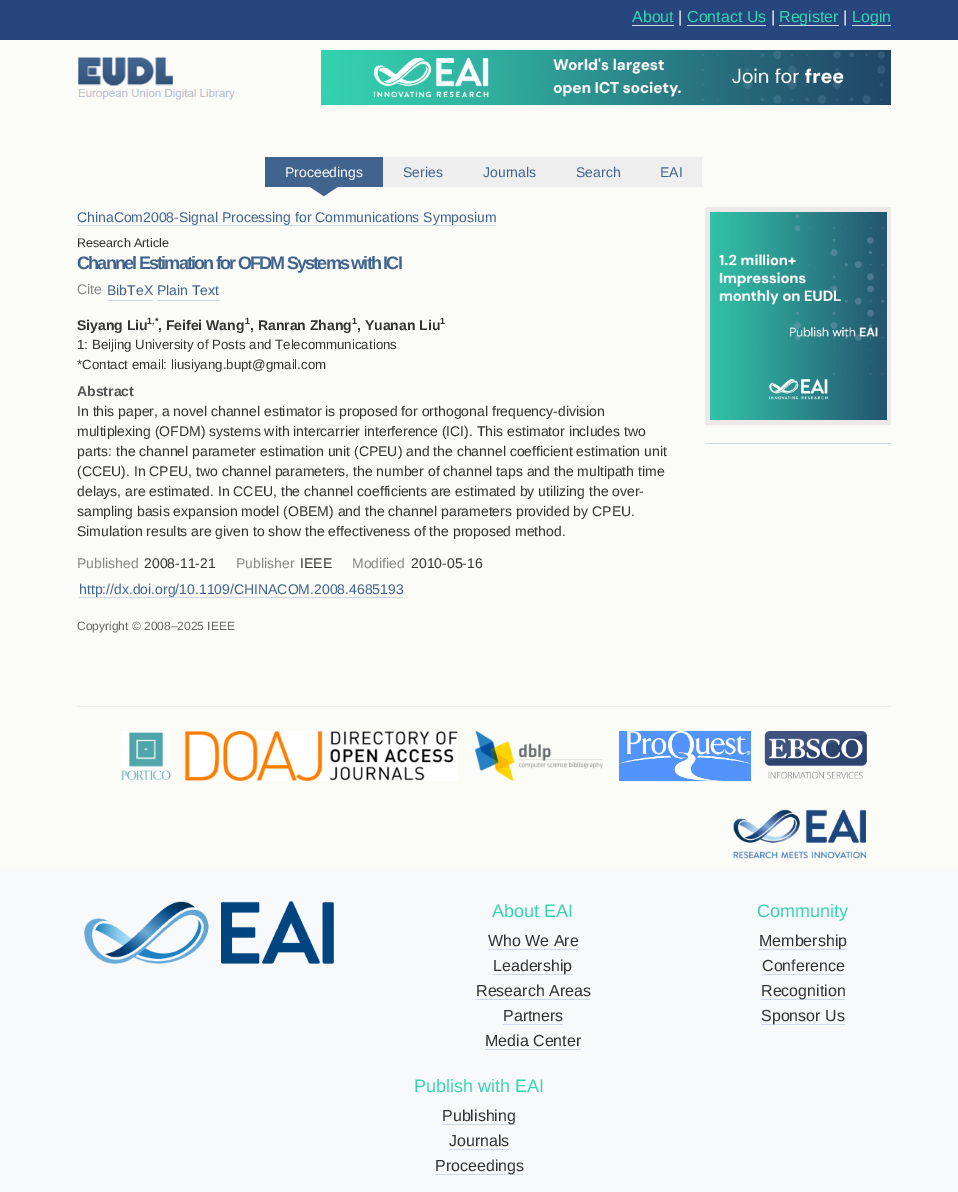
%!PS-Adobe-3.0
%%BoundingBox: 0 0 958 1192
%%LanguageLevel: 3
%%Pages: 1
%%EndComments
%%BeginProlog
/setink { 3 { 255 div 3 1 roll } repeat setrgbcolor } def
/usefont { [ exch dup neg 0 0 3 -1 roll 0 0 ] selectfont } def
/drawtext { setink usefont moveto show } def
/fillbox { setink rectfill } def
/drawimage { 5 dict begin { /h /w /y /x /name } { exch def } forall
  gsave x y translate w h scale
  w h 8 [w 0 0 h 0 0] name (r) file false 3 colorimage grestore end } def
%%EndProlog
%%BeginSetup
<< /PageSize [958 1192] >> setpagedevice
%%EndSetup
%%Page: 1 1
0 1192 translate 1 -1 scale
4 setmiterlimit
0 0 958 1192 251 251 248 fillbox
0 0 958 40 39 70 125 fillbox
(About) 632 22 /LiberationSans-Regular 16 51 214 177 drawtext
632 25 42 1 205 217 232 fillbox
(|) 678 22 /LiberationSans-Regular 16 255 255 255 drawtext
(Contact Us) 687 22 /LiberationSans-Regular 16 51 214 177 drawtext
687 25 79 1 205 217 232 fillbox
(|) 771 22 /LiberationSans-Regular 16 255 255 255 drawtext
779 25 60 1 205 217 232 fillbox
(Register) 779 22 /LiberationSans-Regular 16 51 214 177 drawtext
(|) 843 22 /LiberationSans-Regular 16 255 255 255 drawtext
852 25 39 1 205 217 232 fillbox
(Login) 852 22 /LiberationSans-Regular 16 51 214 177 drawtext
(assets/img1.rgb) 78 57 157 43 drawimage
(assets/img2.rgb) 321 50 570 55 drawimage
265 157 118 30 65 100 143 fillbox
(Proceedings) 285 177 /LiberationSans-Regular 14 255 255 255 drawtext
(assets/img3.rgb) 310 187 28 10 drawimage
383 157 319 30 238 238 238 fillbox
(Series) 403 177 /LiberationSans-Regular 14 65 100 143 drawtext
(Journals) 483 177 /LiberationSans-Regular 14 65 100 143 drawtext
(Search) 576 177 /LiberationSans-Regular 14 65 100 143 drawtext
(EAI) 660 177 /LiberationSans-Regular 14 65 100 143 drawtext
(ChinaCom2008-Signal Processing for Communications Symposium) 77 222 /LiberationSans-Regular 14 65 100 143 drawtext
77 225 419 1 205 217 232 fillbox
(Research Article) 77 247 /LiberationSans-Regular 12.5 51 51 51 drawtext
/LiberationSans-Bold 18 usefont
65 100 143 setink
77 269 moveto -1.8 0 (Channel Estimation for OFDM Systems with ICI) ashow
(Cite) 77 294 /LiberationSans-Regular 14 136 136 136 drawtext
107 300 46 1 205 217 232 fillbox
(BibTeX Plain Text) 107 295 /LiberationSans-Regular 14 65 100 143 drawtext
157 300 63 1 205 217 232 fillbox
(Siyang Liu) 77 330 /LiberationSans-Bold 14 51 51 51 drawtext
(1,*) 147 324 /LiberationSans-Bold 9 51 51 51 drawtext
(, Feifei Wang) 158 330 /LiberationSans-Bold 14 51 51 51 drawtext
(1) 245 324 /LiberationSans-Bold 9 51 51 51 drawtext
(, Ranran Zhang) 250 330 /LiberationSans-Bold 14 51 51 51 drawtext
(1) 352 324 /LiberationSans-Bold 9 51 51 51 drawtext
(, Yuanan Liu) 357 330 /LiberationSans-Bold 14 51 51 51 drawtext
(1) 440 324 /LiberationSans-Bold 9 51 51 51 drawtext
(1: Beijing University of Posts and Telecommunications) 77 349 /LiberationSans-Regular 13.3 51 51 51 drawtext
(*Contact email: liusiyang.bupt@gmail.com) 77 369 /LiberationSans-Regular 13.3 51 51 51 drawtext
(Abstract) 77 396 /LiberationSans-Bold 14 85 85 85 drawtext
(In this paper, a novel channel estimator is proposed for orthogonal frequency-division) 77 416 /LiberationSans-Regular 14 51 51 51 drawtext
(multiplexing \(OFDM\) systems with intercarrier interference \(ICI\). This estimator includes two) 77 436 /LiberationSans-Regular 14 51 51 51 drawtext
(parts: the channel parameter estimation unit \(CPEU\) and the channel coefficient estimation unit) 77 456 /LiberationSans-Regular 14 51 51 51 drawtext
(\(CCEU\). In CPEU, two channel parameters, the number of channel taps and the multipath time) 77 476 /LiberationSans-Regular 14 51 51 51 drawtext
(delays, are estimated. In CCEU, the channel coefficients are estimated by utilizing the over-) 77 496 /LiberationSans-Regular 14 51 51 51 drawtext
(sampling basis expansion model \(OBEM\) and the channel parameters provided by CPEU.) 77 516 /LiberationSans-Regular 14 51 51 51 drawtext
(Simulation results are given to show the effectiveness of the proposed method.) 77 536 /LiberationSans-Regular 14 51 51 51 drawtext
(Published) 77 568 /LiberationSans-Regular 14 136 136 136 drawtext
(2008-11-21) 144 568 /LiberationSans-Regular 14 51 51 51 drawtext
(Publisher) 236 568 /LiberationSans-Regular 14 136 136 136 drawtext
(IEEE) 300 568 /LiberationSans-Regular 14 51 51 51 drawtext
(Modified) 352 568 /LiberationSans-Regular 14 136 136 136 drawtext
(2010-05-16) 411 568 /LiberationSans-Regular 14 51 51 51 drawtext
(http://dx.doi.org/10.1109/CHINACOM.2008.4685193) 79 594 /LiberationSans-Regular 14 65 100 143 drawtext
79 597 324 1 205 217 232 fillbox
(Copyright © 2008–2025 IEEE) 77 630 /LiberationSans-Regular 12 102 102 102 drawtext
gsave
77 40 814 885 rectclip
237 233 233 setink
5 setlinewidth
707.5 209.5 182 213 rectstroke
grestore
(assets/img4.rgb) 710 212 177 208 drawimage
705 443 186 1 205 217 232 fillbox
77 706 814 1 238 238 238 fillbox
(assets/img5.rgb) 121 731 50 50 drawimage
(assets/img6.rgb) 184 731 274 50 drawimage
(assets/img7.rgb) 475 731 128 50 drawimage
619 731 132 50 83 148 252 fillbox
(assets/img8.rgb) 619 731 132 50 drawimage
(assets/img9.rgb) 764 731 103 48 drawimage
(assets/img10.rgb) 733 809 133 50 drawimage
0 871 958 321 248 249 250 fillbox
(assets/img11.rgb) 84 901 250 63 drawimage
(About EAI) 492 917 /LiberationSans-Regular 18 51 214 177 drawtext
(Who We Are) 488 946 /LiberationSans-Regular 16 51 51 51 drawtext
488 949 90 1 205 217 232 fillbox
493 974 80 1 205 217 232 fillbox
(Leadership) 493 971 /LiberationSans-Regular 16 51 51 51 drawtext
(Research Areas) 476 996 /LiberationSans-Regular 16 51 51 51 drawtext
476 999 114 1 205 217 232 fillbox
(Partners) 503 1021 /LiberationSans-Regular 16 51 51 51 drawtext
503 1024 60 1 205 217 232 fillbox
(Media Center) 485 1046 /LiberationSans-Regular 16 51 51 51 drawtext
485 1049 96 1 205 217 232 fillbox
(Community) 757 917 /LiberationSans-Regular 18 51 214 177 drawtext
759 949 88 1 205 217 232 fillbox
(Membership) 759 946 /LiberationSans-Regular 16 51 51 51 drawtext
(Conference) 762 971 /LiberationSans-Regular 16 51 51 51 drawtext
762 974 82 1 205 217 232 fillbox
761 999 84 1 205 217 232 fillbox
(Recognition) 761 996 /LiberationSans-Regular 16 51 51 51 drawtext
761 1024 84 1 205 217 232 fillbox
(Sponsor Us) 761 1021 /LiberationSans-Regular 16 51 51 51 drawtext
(Publish with EAI) 414 1092 /LiberationSans-Regular 18 51 214 177 drawtext
442 1124 74 1 205 217 232 fillbox
(Publishing) 442 1121 /LiberationSans-Regular 16 51 51 51 drawtext
(Journals) 449 1146 /LiberationSans-Regular 16 51 51 51 drawtext
449 1149 60 1 205 217 232 fillbox
435 1174 88 1 205 217 232 fillbox
(Proceedings) 435 1171 /LiberationSans-Regular 16 51 51 51 drawtext
showpage
%%EOF
